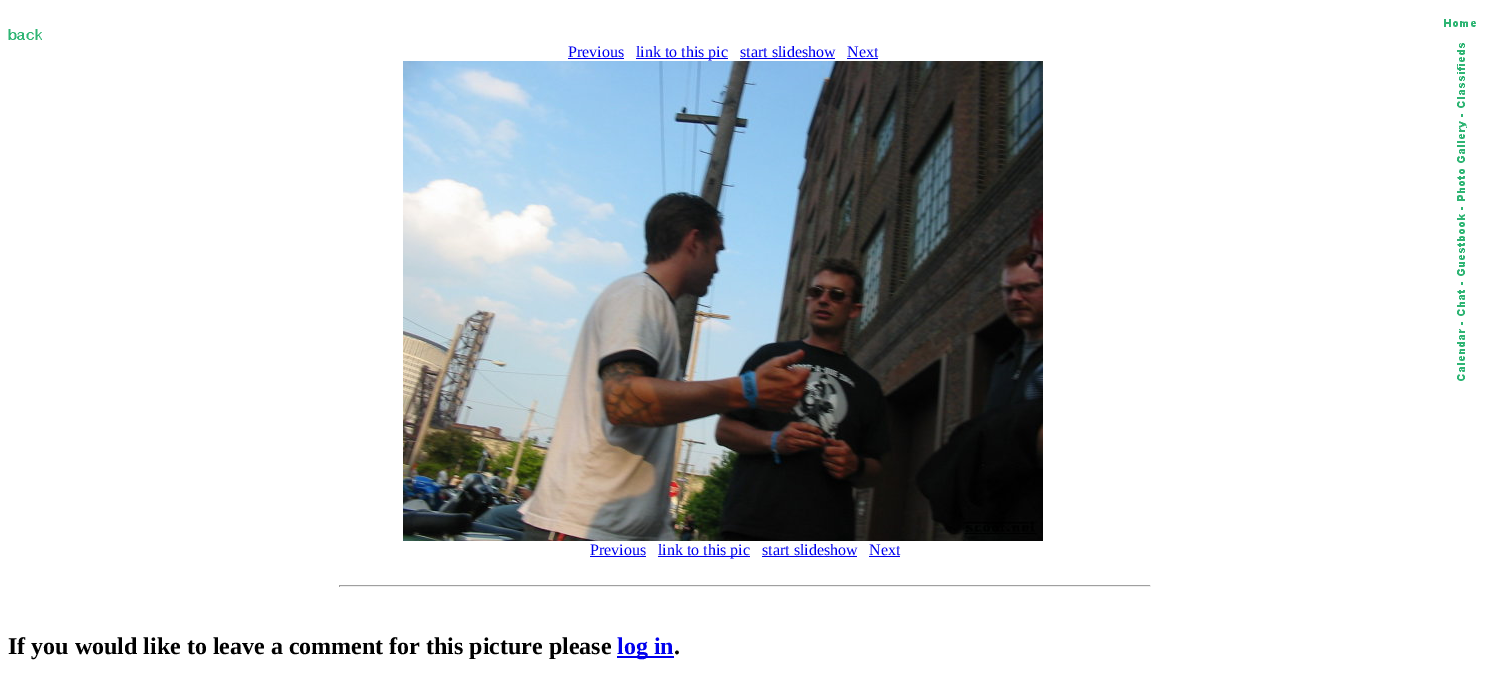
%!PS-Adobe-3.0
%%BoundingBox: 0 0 1490 698
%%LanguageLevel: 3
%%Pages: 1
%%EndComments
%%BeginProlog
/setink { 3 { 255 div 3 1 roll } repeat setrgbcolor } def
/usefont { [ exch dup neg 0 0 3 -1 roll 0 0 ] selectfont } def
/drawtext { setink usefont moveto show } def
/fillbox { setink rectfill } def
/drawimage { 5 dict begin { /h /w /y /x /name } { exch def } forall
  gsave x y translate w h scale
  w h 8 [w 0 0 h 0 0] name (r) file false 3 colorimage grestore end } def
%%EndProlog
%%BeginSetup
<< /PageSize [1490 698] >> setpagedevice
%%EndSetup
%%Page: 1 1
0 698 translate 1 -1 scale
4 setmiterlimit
0 0 1490 698 255 255 255 fillbox
(assets/img1.rgb) 8 29 34 11 drawimage
(assets/img2.rgb) 1444 19 32 8 drawimage
(assets/img3.rgb) 1457 43 10 338 drawimage
(Previous) 568 57 /LiberationSerif-Regular 16 0 0 238 drawtext
568 58 56 1 0 0 238 fillbox
636 58 92 1 0 0 238 fillbox
(link to this pic) 636 57 /LiberationSerif-Regular 16 0 0 238 drawtext
(start slideshow) 740 57 /LiberationSerif-Regular 16 0 0 238 drawtext
740 58 95 1 0 0 238 fillbox
(Next) 847 57 /LiberationSerif-Regular 16 0 0 238 drawtext
847 58 31 1 0 0 238 fillbox
(assets/img4.rgb) 403 61 640 480 drawimage
(Previous) 590 555 /LiberationSerif-Regular 16 0 0 238 drawtext
590 556 56 1 0 0 238 fillbox
658 556 92 1 0 0 238 fillbox
(link to this pic) 658 555 /LiberationSerif-Regular 16 0 0 238 drawtext
(start slideshow) 762 555 /LiberationSerif-Regular 16 0 0 238 drawtext
762 556 95 1 0 0 238 fillbox
(Next) 869 555 /LiberationSerif-Regular 16 0 0 238 drawtext
869 556 31 1 0 0 238 fillbox
339 585 812 1 159 159 159 fillbox
1150 585 1 2 238 238 238 fillbox
339 586 812 1 238 238 238 fillbox
339 585 1 2 159 159 159 fillbox
(If you would like to leave a comment for this picture please) 8 654 /LiberationSerif-Bold 24 0 0 0 drawtext
617 656 57 2 0 0 238 fillbox
(log in) 617 654 /LiberationSerif-Bold 24 0 0 238 drawtext
(.) 674 654 /LiberationSerif-Bold 24 0 0 0 drawtext
showpage
%%EOF
